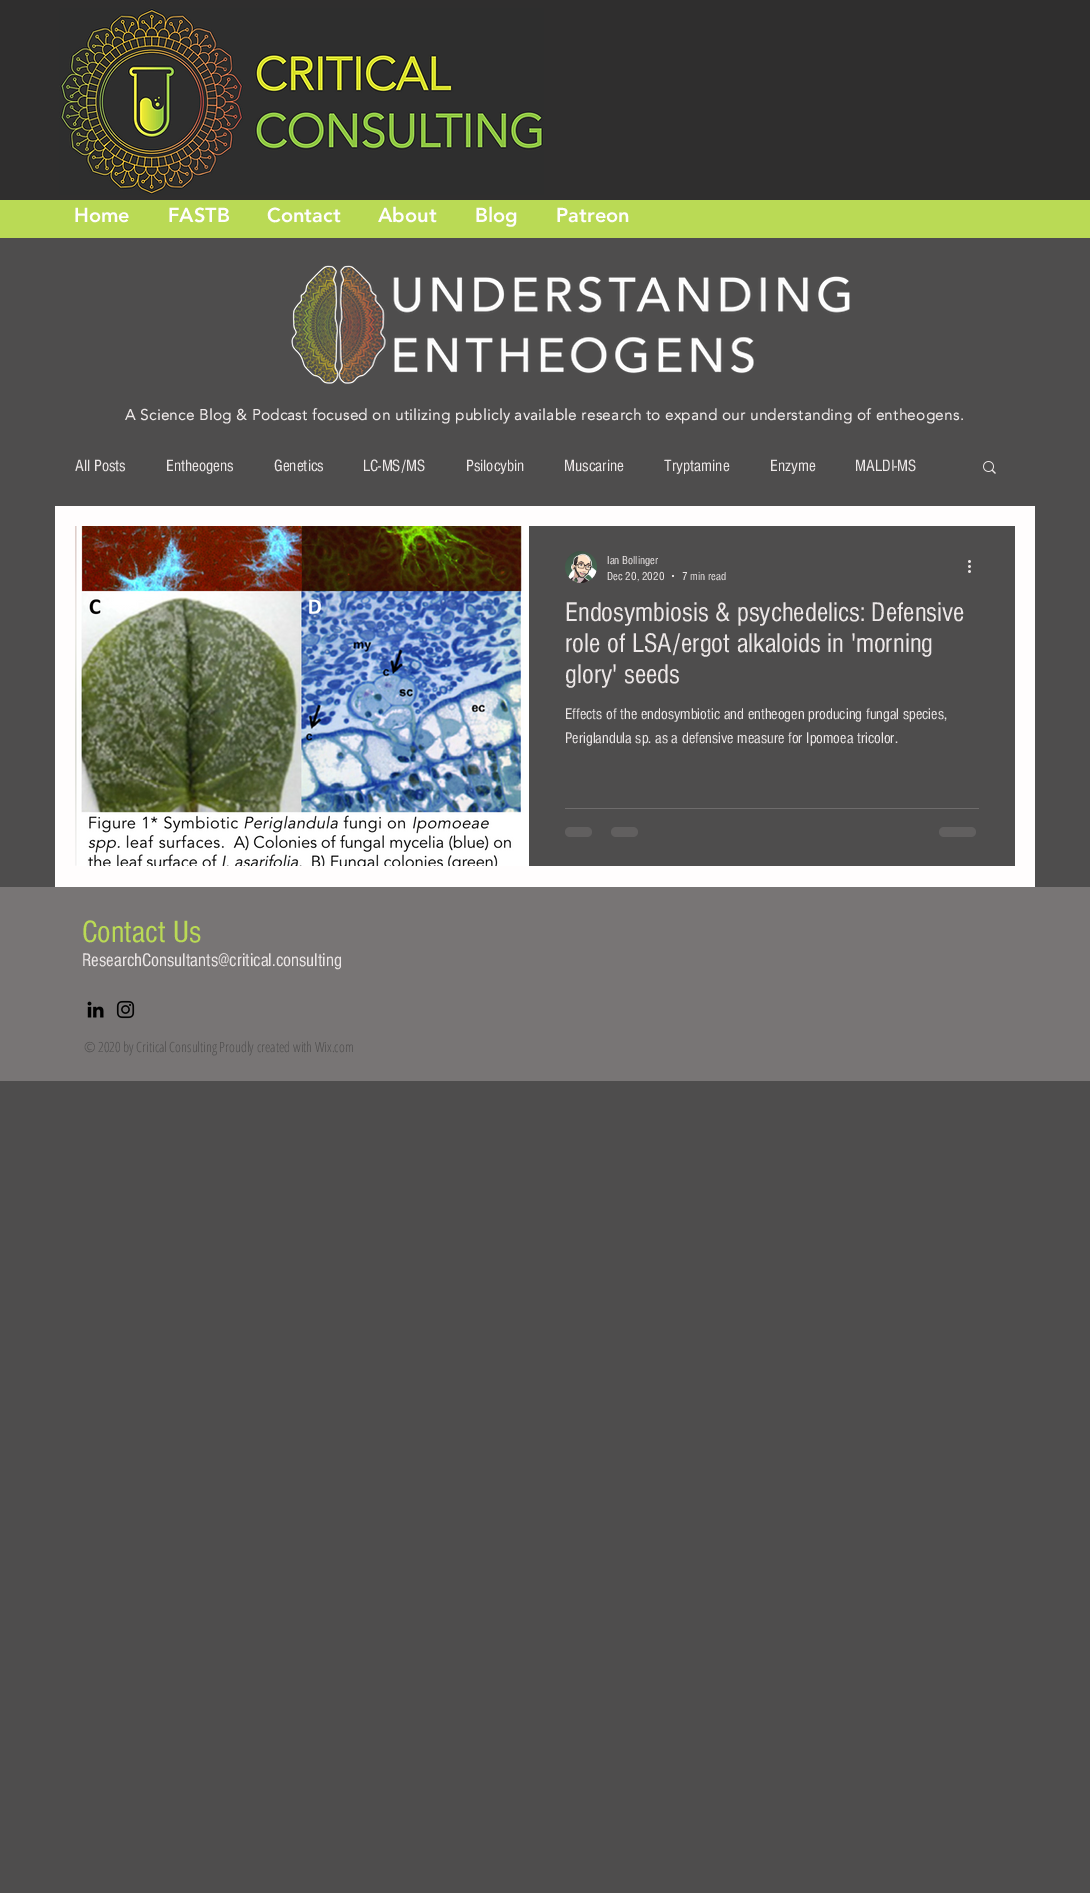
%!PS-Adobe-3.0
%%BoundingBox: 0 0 1090 1893
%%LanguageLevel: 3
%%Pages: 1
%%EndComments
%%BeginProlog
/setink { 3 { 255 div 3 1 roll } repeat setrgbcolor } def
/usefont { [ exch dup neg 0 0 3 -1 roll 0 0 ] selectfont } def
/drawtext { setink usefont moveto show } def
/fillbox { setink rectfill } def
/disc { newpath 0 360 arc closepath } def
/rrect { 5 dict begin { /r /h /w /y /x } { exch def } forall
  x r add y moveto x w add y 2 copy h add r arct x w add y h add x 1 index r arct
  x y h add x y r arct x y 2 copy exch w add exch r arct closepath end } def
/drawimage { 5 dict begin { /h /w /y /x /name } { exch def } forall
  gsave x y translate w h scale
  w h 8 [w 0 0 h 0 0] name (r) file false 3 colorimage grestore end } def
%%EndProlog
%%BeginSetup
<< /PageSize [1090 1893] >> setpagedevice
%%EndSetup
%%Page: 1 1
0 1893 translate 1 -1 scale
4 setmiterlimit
0 0 1090 1893 78 77 77 fillbox
0 0 1090 200 47 46 46 fillbox
(assets/img1.rgb) 59 8 485 187 drawimage
0 200 1090 38 186 218 85 fillbox
(Home) 74 222 /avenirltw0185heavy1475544-Black 20 255 253 253 drawtext
(FASTB) 168 222 /avenirltw0185heavy1475544-Black 20 255 253 253 drawtext
(Contact) 267 222 /avenirltw0185heavy1475544-Black 20 255 253 253 drawtext
(About) 378 222 /avenirltw0185heavy1475544-Black 20 255 253 253 drawtext
(Blog) 475 222 /avenirltw0185heavy1475544-Black 20 255 253 253 drawtext
(Patreon) 556 222 /avenirltw0185heavy1475544-Black 20 255 253 253 drawtext
(assets/img2.rgb) 291 265 559 119 drawimage
/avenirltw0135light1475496-Bold 15 usefont
236 231 231 setink
125 420 moveto 0.45 0 (A Science Blog & Podcast focused on utilizing publicly available research to expand our understanding of entheogens.) ashow
55 506 980 381 255 253 253 fillbox
(All Posts) 75 471 /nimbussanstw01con-Regular 17 236 231 231 drawtext
(Entheogens) 166 471 /nimbussanstw01con-Regular 17 236 231 231 drawtext
(Genetics) 274 471 /nimbussanstw01con-Regular 17 236 231 231 drawtext
(LC-MS/MS) 363 471 /nimbussanstw01con-Regular 17 236 231 231 drawtext
(Psilocybin) 466 471 /nimbussanstw01con-Regular 17 236 231 231 drawtext
(Muscarine) 564 471 /nimbussanstw01con-Regular 17 236 231 231 drawtext
(Tryptamine) 664 471 /nimbussanstw01con-Regular 17 236 231 231 drawtext
(Enzyme) 770 471 /nimbussanstw01con-Regular 17 236 231 231 drawtext
(MALDI-MS) 855 471 /nimbussanstw01con-Regular 17 236 231 231 drawtext
(assets/img3.rgb) 983 461 13 13 drawimage
(assets/img4.rgb) 75 526 4 340 drawimage
(assets/img5.rgb) 76 526 453 340 drawimage
529 526 486 340 78 77 77 fillbox
(assets/img6.rgb) 565 551 32 32 drawimage
(Ian Bollinger) 607 564 /nimbussanstw01con-Regular 12 236 231 231 drawtext
(Dec 20, 2020) 607 580 /nimbussanstw01con-Regular 12 236 231 231 drawtext
673 576 1 disc fill
(7 min read) 682 580 /nimbussanstw01con-Regular 12 236 231 231 drawtext
(assets/img7.rgb) 968 560 3 13 drawimage
(Endosymbiosis & psychedelics: Defensive) 565 621 /nimbussanstw01con-Regular 28 236 231 231 drawtext
(role of LSA/ergot alkaloids in 'morning) 565 652 /nimbussanstw01con-Regular 28 236 231 231 drawtext
(glory' seeds) 565 683 /nimbussanstw01con-Regular 28 236 231 231 drawtext
(Effects of the endosymbiotic and entheogen producing fungal species,) 565 719 /nimbussanstw01con-Regular 16 236 231 231 drawtext
(Periglandula sp. as a defensive measure for Ipomoea tricolor.) 565 743 /nimbussanstw01con-Regular 16 236 231 231 drawtext
565 808 414 1 110 108 108 fillbox
97 95 95 setink
565 827 27 10 5 rrect fill
611 827 27 10 5 rrect fill
939 827 37 10 5 rrect fill
0 887 1090 194 120 117 117 fillbox
(Contact Us) 82 942 /nimbussanstw01con-Regular 32 186 218 85 drawtext
(ResearchConsultants@critical.consulting) 82 966 /nimbussanstw01con-Regular 19 236 231 231 drawtext
(assets/img8.rgb) 87 1001 17 17 drawimage
(assets/img9.rgb) 116 1000 19 19 drawimage
(© 2020 by Critical Consulting Proudly created with Wix.com) 84 1052 /OpenSansCondensed-Light 14 78 77 77 drawtext
showpage
%%EOF
